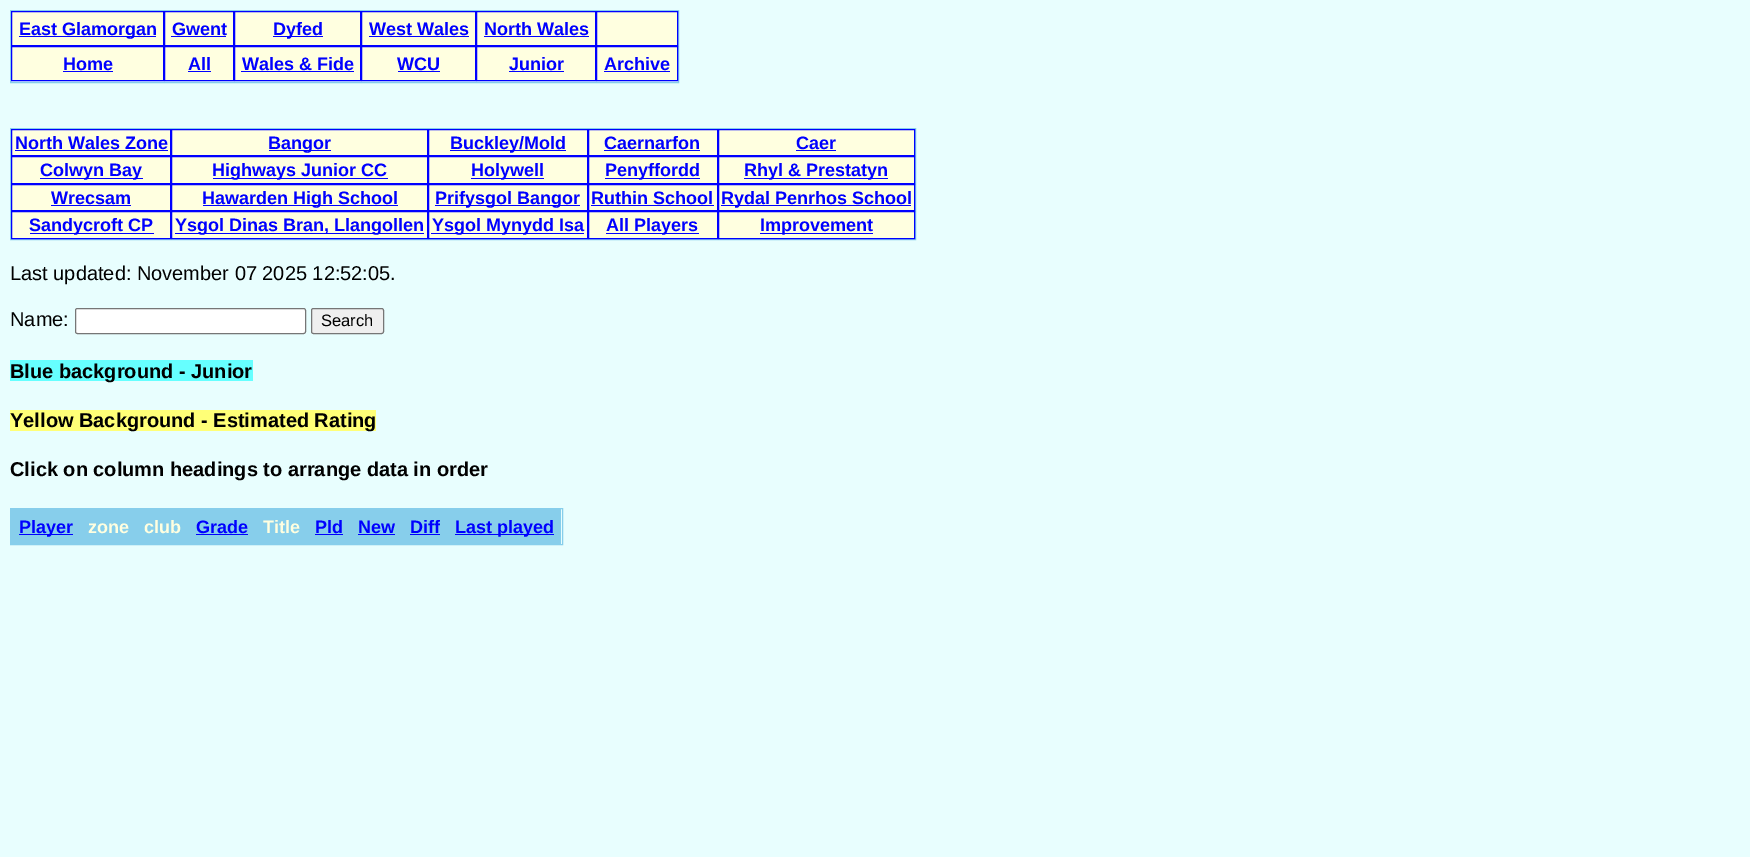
%!PS-Adobe-3.0
%%BoundingBox: 0 0 1750 857
%%LanguageLevel: 3
%%Pages: 1
%%EndComments
%%BeginProlog
/setink { 3 { 255 div 3 1 roll } repeat setrgbcolor } def
/usefont { [ exch dup neg 0 0 3 -1 roll 0 0 ] selectfont } def
/drawtext { setink usefont moveto show } def
/fillbox { setink rectfill } def
/rrect { 5 dict begin { /r /h /w /y /x } { exch def } forall
  x r add y moveto x w add y 2 copy h add r arct x w add y h add x 1 index r arct
  x y h add x y r arct x y 2 copy exch w add exch r arct closepath end } def
%%EndProlog
%%BeginSetup
<< /PageSize [1750 857] >> setpagedevice
%%EndSetup
%%Page: 1 1
0 857 translate 1 -1 scale
4 setmiterlimit
0 0 1750 857 232 254 254 fillbox
135 206 235 setink
10.5 10.5 668 72 rectstroke
255 255 224 setink
11.5 11.5 moveto 163.5 11.5 lineto 163.5 45.5 lineto 11.5 45.5 lineto closepath gsave fill grestore
0 0 255 setink
stroke
19 36 137 1 0 0 255 fillbox
(East Glamorgan) 19 35 /LiberationSans-Bold 18 0 0 255 drawtext
255 255 224 setink
164.5 11.5 moveto 233.5 11.5 lineto 233.5 45.5 lineto 164.5 45.5 lineto closepath gsave fill grestore
0 0 255 setink
stroke
(Gwent) 172 35 /LiberationSans-Bold 18 0 0 255 drawtext
171 36 55 1 0 0 255 fillbox
255 255 224 setink
234.5 11.5 moveto 360.5 11.5 lineto 360.5 45.5 lineto 234.5 45.5 lineto closepath gsave fill grestore
0 0 255 setink
stroke
273 36 50 1 0 0 255 fillbox
(Dyfed) 273 35 /LiberationSans-Bold 18 0 0 255 drawtext
255 255 224 setink
361.5 11.5 moveto 475.5 11.5 lineto 475.5 45.5 lineto 361.5 45.5 lineto closepath gsave fill grestore
0 0 255 setink
stroke
(West Wales) 369 35 /LiberationSans-Bold 18 0 0 255 drawtext
369 36 100 1 0 0 255 fillbox
255 255 224 setink
476.5 11.5 moveto 595.5 11.5 lineto 595.5 45.5 lineto 476.5 45.5 lineto closepath gsave fill grestore
0 0 255 setink
stroke
(North Wales) 484 35 /LiberationSans-Bold 18 0 0 255 drawtext
484 36 105 1 0 0 255 fillbox
255 255 224 setink
596.5 11.5 moveto 677.5 11.5 lineto 677.5 45.5 lineto 596.5 45.5 lineto closepath gsave fill grestore
0 0 255 setink
stroke
255 255 224 setink
11.5 46.5 moveto 163.5 46.5 lineto 163.5 80.5 lineto 11.5 80.5 lineto closepath gsave fill grestore
0 0 255 setink
stroke
(Home) 63 70 /LiberationSans-Bold 18 0 0 255 drawtext
63 71 50 1 0 0 255 fillbox
255 255 224 setink
164.5 46.5 moveto 233.5 46.5 lineto 233.5 80.5 lineto 164.5 80.5 lineto closepath gsave fill grestore
0 0 255 setink
stroke
(All) 188 70 /LiberationSans-Bold 18 0 0 255 drawtext
188 71 23 1 0 0 255 fillbox
255 255 224 setink
234.5 46.5 moveto 360.5 46.5 lineto 360.5 80.5 lineto 234.5 80.5 lineto closepath gsave fill grestore
0 0 255 setink
stroke
(Wales & Fide) 242 70 /LiberationSans-Bold 18 0 0 255 drawtext
241 71 113 1 0 0 255 fillbox
255 255 224 setink
361.5 46.5 moveto 475.5 46.5 lineto 475.5 80.5 lineto 361.5 80.5 lineto closepath gsave fill grestore
0 0 255 setink
stroke
(WCU) 397 70 /LiberationSans-Bold 18 0 0 255 drawtext
398 71 42 1 0 0 255 fillbox
255 255 224 setink
476.5 46.5 moveto 595.5 46.5 lineto 595.5 80.5 lineto 476.5 80.5 lineto closepath gsave fill grestore
0 0 255 setink
stroke
(Junior) 509 70 /LiberationSans-Bold 18 0 0 255 drawtext
509 71 55 1 0 0 255 fillbox
255 255 224 setink
596.5 46.5 moveto 677.5 46.5 lineto 677.5 80.5 lineto 596.5 80.5 lineto closepath gsave fill grestore
0 0 255 setink
stroke
(Archive) 604 70 /LiberationSans-Bold 18 0 0 255 drawtext
604 71 66 1 0 0 255 fillbox
135 206 235 setink
10.5 128.5 905 111 rectstroke
255 255 224 setink
11.5 129.5 moveto 170.5 129.5 lineto 170.5 155.5 lineto 11.5 155.5 lineto closepath gsave fill grestore
0 0 255 setink
stroke
(North Wales Zone) 15 149 /LiberationSans-Bold 18 0 0 255 drawtext
15 150 153 1 0 0 255 fillbox
255 255 224 setink
171.5 129.5 moveto 427.5 129.5 lineto 427.5 155.5 lineto 171.5 155.5 lineto closepath gsave fill grestore
0 0 255 setink
stroke
269 150 62 1 0 0 255 fillbox
(Bangor) 268 149 /LiberationSans-Bold 18 0 0 255 drawtext
255 255 224 setink
428.5 129.5 moveto 587.5 129.5 lineto 587.5 155.5 lineto 428.5 155.5 lineto closepath gsave fill grestore
0 0 255 setink
stroke
450 150 116 1 0 0 255 fillbox
(Buckley/Mold) 450 149 /LiberationSans-Bold 18 0 0 255 drawtext
255 255 224 setink
588.5 129.5 moveto 717.5 129.5 lineto 717.5 155.5 lineto 588.5 155.5 lineto closepath gsave fill grestore
0 0 255 setink
stroke
(Caernarfon) 604 149 /LiberationSans-Bold 18 0 0 255 drawtext
604 150 96 1 0 0 255 fillbox
255 255 224 setink
718.5 129.5 moveto 914.5 129.5 lineto 914.5 155.5 lineto 718.5 155.5 lineto closepath gsave fill grestore
0 0 255 setink
stroke
(Caer) 796 149 /LiberationSans-Bold 18 0 0 255 drawtext
796 150 40 1 0 0 255 fillbox
255 255 224 setink
11.5 156.5 moveto 170.5 156.5 lineto 170.5 183.5 lineto 11.5 183.5 lineto closepath gsave fill grestore
0 0 255 setink
stroke
40 178 103 1 0 0 255 fillbox
(Colwyn Bay) 40 176 /LiberationSans-Bold 18 0 0 255 drawtext
255 255 224 setink
171.5 156.5 moveto 427.5 156.5 lineto 427.5 183.5 lineto 171.5 183.5 lineto closepath gsave fill grestore
0 0 255 setink
stroke
213 178 175 1 0 0 255 fillbox
(Highways Junior CC) 212 176 /LiberationSans-Bold 18 0 0 255 drawtext
255 255 224 setink
428.5 156.5 moveto 587.5 156.5 lineto 587.5 183.5 lineto 428.5 183.5 lineto closepath gsave fill grestore
0 0 255 setink
stroke
471 178 73 1 0 0 255 fillbox
(Holywell) 471 176 /LiberationSans-Bold 18 0 0 255 drawtext
255 255 224 setink
588.5 156.5 moveto 717.5 156.5 lineto 717.5 183.5 lineto 588.5 183.5 lineto closepath gsave fill grestore
0 0 255 setink
stroke
605 178 95 1 0 0 255 fillbox
(Penyffordd) 605 176 /LiberationSans-Bold 18 0 0 255 drawtext
255 255 224 setink
718.5 156.5 moveto 914.5 156.5 lineto 914.5 183.5 lineto 718.5 183.5 lineto closepath gsave fill grestore
0 0 255 setink
stroke
744 178 144 1 0 0 255 fillbox
(Rhyl & Prestatyn) 744 176 /LiberationSans-Bold 18 0 0 255 drawtext
255 255 224 setink
11.5 184.5 moveto 170.5 184.5 lineto 170.5 210.5 lineto 11.5 210.5 lineto closepath gsave fill grestore
0 0 255 setink
stroke
(Wrecsam) 51 204 /LiberationSans-Bold 18 0 0 255 drawtext
51 205 80 1 0 0 255 fillbox
255 255 224 setink
171.5 184.5 moveto 427.5 184.5 lineto 427.5 210.5 lineto 171.5 210.5 lineto closepath gsave fill grestore
0 0 255 setink
stroke
203 205 195 1 0 0 255 fillbox
(Hawarden High School) 202 204 /LiberationSans-Bold 18 0 0 255 drawtext
255 255 224 setink
428.5 184.5 moveto 587.5 184.5 lineto 587.5 210.5 lineto 428.5 210.5 lineto closepath gsave fill grestore
0 0 255 setink
stroke
435 205 145 1 0 0 255 fillbox
(Prifysgol Bangor) 435 204 /LiberationSans-Bold 18 0 0 255 drawtext
255 255 224 setink
588.5 184.5 moveto 717.5 184.5 lineto 717.5 210.5 lineto 588.5 210.5 lineto closepath gsave fill grestore
0 0 255 setink
stroke
(Ruthin School) 591 204 /LiberationSans-Bold 18 0 0 255 drawtext
591 205 123 1 0 0 255 fillbox
255 255 224 setink
718.5 184.5 moveto 914.5 184.5 lineto 914.5 210.5 lineto 718.5 210.5 lineto closepath gsave fill grestore
0 0 255 setink
stroke
721 205 190 1 0 0 255 fillbox
(Rydal Penrhos School) 721 204 /LiberationSans-Bold 18 0 0 255 drawtext
255 255 224 setink
11.5 211.5 moveto 170.5 211.5 lineto 170.5 238.5 lineto 11.5 238.5 lineto closepath gsave fill grestore
0 0 255 setink
stroke
30 233 124 1 0 0 255 fillbox
(Sandycroft CP) 29 231 /LiberationSans-Bold 18 0 0 255 drawtext
255 255 224 setink
171.5 211.5 moveto 427.5 211.5 lineto 427.5 238.5 lineto 171.5 238.5 lineto closepath gsave fill grestore
0 0 255 setink
stroke
175 233 249 1 0 0 255 fillbox
(Ysgol Dinas Bran, Llangollen) 175 231 /LiberationSans-Bold 18 0 0 255 drawtext
255 255 224 setink
428.5 211.5 moveto 587.5 211.5 lineto 587.5 238.5 lineto 428.5 238.5 lineto closepath gsave fill grestore
0 0 255 setink
stroke
431 233 153 1 0 0 255 fillbox
(Ysgol Mynydd Isa) 432 231 /LiberationSans-Bold 18 0 0 255 drawtext
255 255 224 setink
588.5 211.5 moveto 717.5 211.5 lineto 717.5 238.5 lineto 588.5 238.5 lineto closepath gsave fill grestore
0 0 255 setink
stroke
606 233 93 1 0 0 255 fillbox
(All Players) 606 231 /LiberationSans-Bold 18 0 0 255 drawtext
255 255 224 setink
718.5 211.5 moveto 914.5 211.5 lineto 914.5 238.5 lineto 718.5 238.5 lineto closepath gsave fill grestore
0 0 255 setink
stroke
760 233 113 1 0 0 255 fillbox
(Improvement) 760 231 /LiberationSans-Bold 18 0 0 255 drawtext
(Last updated: November 07 2025 12:52:05.) 10 280 /LiberationSans-Regular 20 0 0 0 drawtext
(Name:) 10 326 /LiberationSans-Regular 20 0 0 0 drawtext
255 255 255 setink
75.5 308.5 230 25 2 rrect gsave fill grestore
118 118 118 setink
stroke
239 239 239 setink
311.5 308.5 72 25 2 rrect gsave fill grestore
118 118 118 setink
stroke
(Search) 321 326 /LiberationSans-Regular 16.5 0 0 0 drawtext
10 360 243 21 102 255 255 fillbox
(Blue background - Junior) 10 378 /LiberationSans-Bold 20 0 0 0 drawtext
10 410 366 21 255 255 119 fillbox
(Yellow Background - Estimated Rating) 10 427 /LiberationSans-Bold 20 0 0 0 drawtext
(Click on column headings to arrange data in order) 10 476 /LiberationSans-Bold 20 0 0 0 drawtext
135 206 235 setink
10.5 508.5 552 36 rectstroke
11 509 550 35 135 206 235 fillbox
19 534 54 1 0 0 255 fillbox
(Player) 19 533 /LiberationSans-Bold 18 0 0 255 drawtext
(zone) 88 533 /LiberationSans-Bold 18 255 255 224 drawtext
(club) 144 533 /LiberationSans-Bold 18 255 255 224 drawtext
(Grade) 196 533 /LiberationSans-Bold 18 0 0 255 drawtext
196 534 52 1 0 0 255 fillbox
(Title) 263 533 /LiberationSans-Bold 18 255 255 224 drawtext
(Pld) 315 533 /LiberationSans-Bold 18 0 0 255 drawtext
315 534 28 1 0 0 255 fillbox
(New) 358 533 /LiberationSans-Bold 18 0 0 255 drawtext
358 534 37 1 0 0 255 fillbox
(Diff) 410 533 /LiberationSans-Bold 18 0 0 255 drawtext
410 534 30 1 0 0 255 fillbox
455 534 99 1 0 0 255 fillbox
(Last played) 455 533 /LiberationSans-Bold 18 0 0 255 drawtext
showpage
%%EOF
